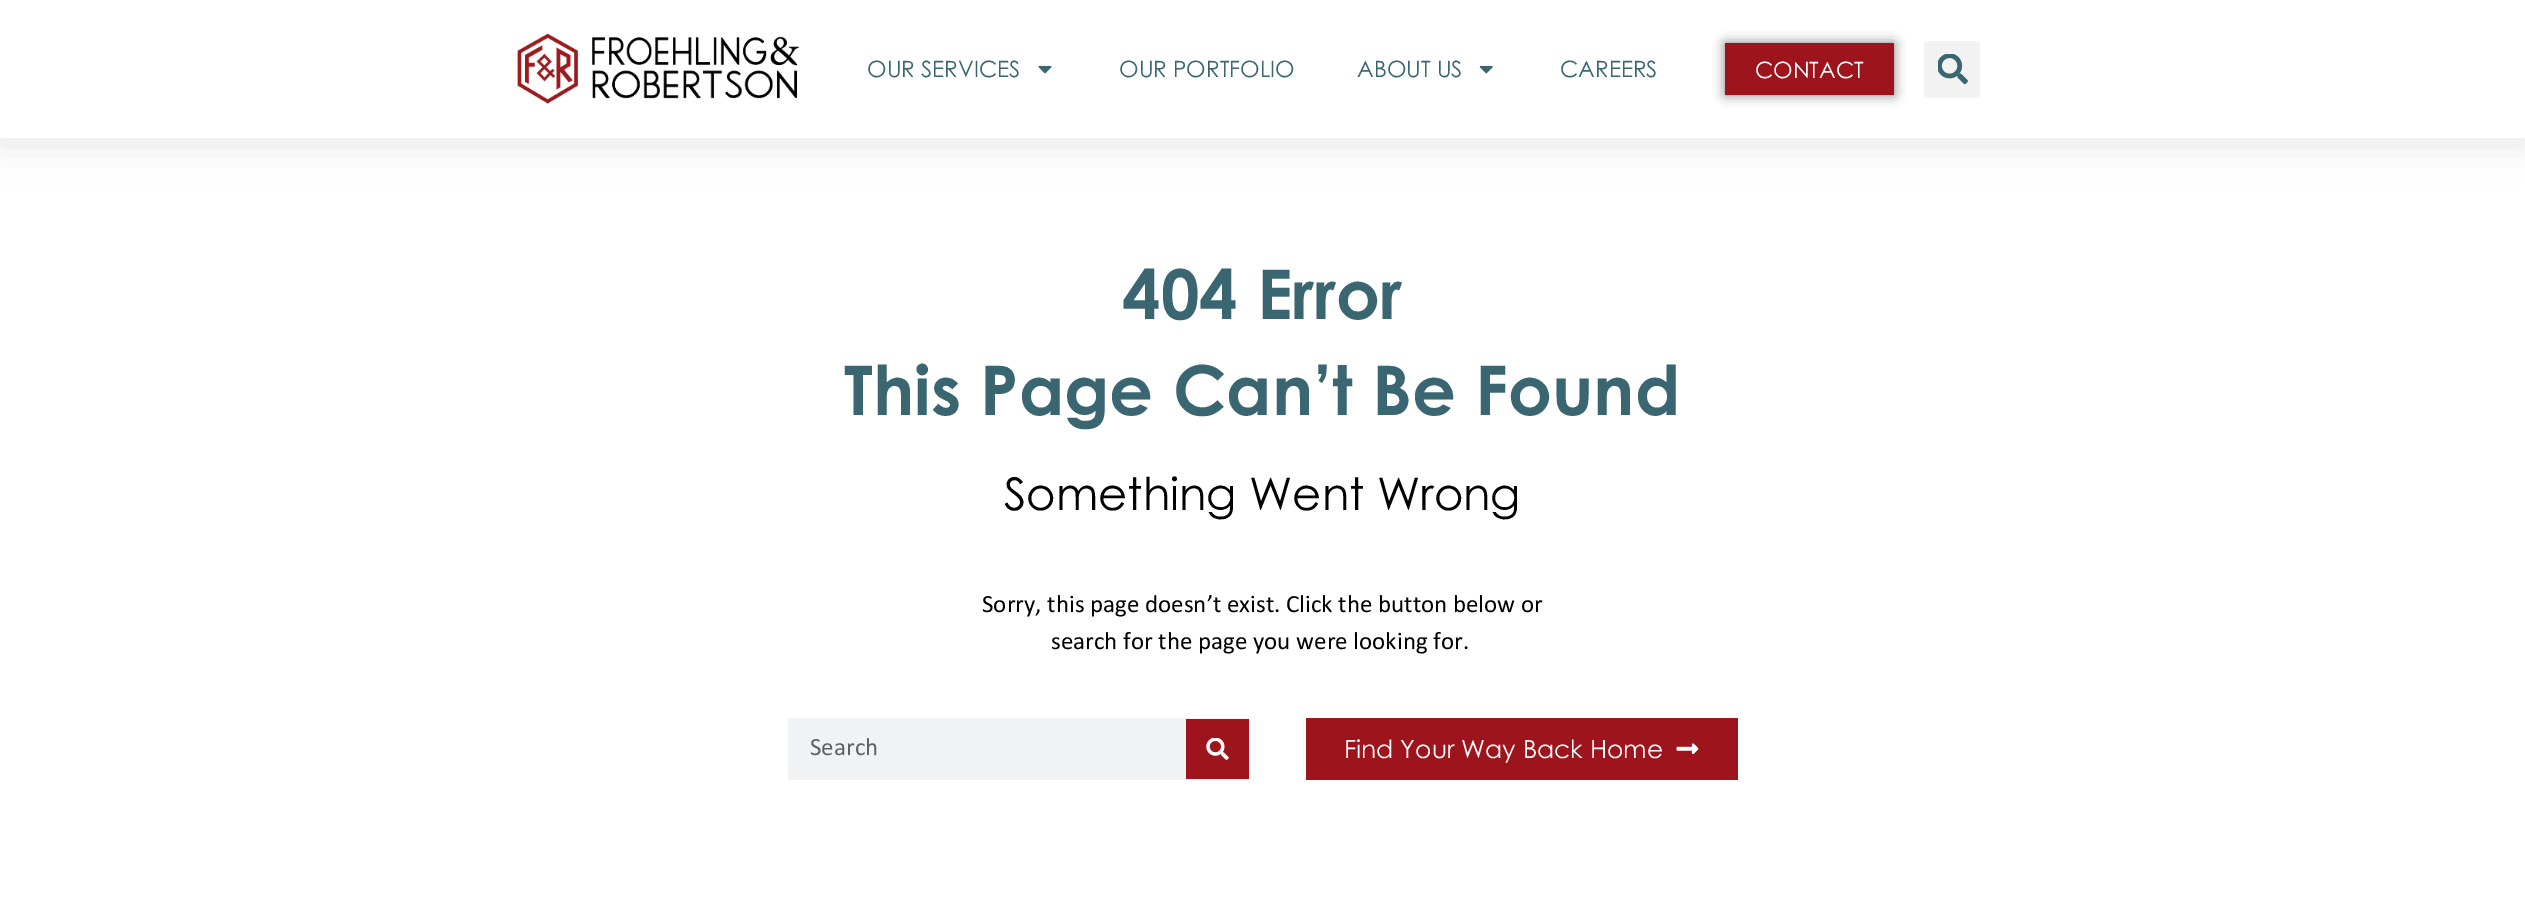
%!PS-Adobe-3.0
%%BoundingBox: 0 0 2525 901
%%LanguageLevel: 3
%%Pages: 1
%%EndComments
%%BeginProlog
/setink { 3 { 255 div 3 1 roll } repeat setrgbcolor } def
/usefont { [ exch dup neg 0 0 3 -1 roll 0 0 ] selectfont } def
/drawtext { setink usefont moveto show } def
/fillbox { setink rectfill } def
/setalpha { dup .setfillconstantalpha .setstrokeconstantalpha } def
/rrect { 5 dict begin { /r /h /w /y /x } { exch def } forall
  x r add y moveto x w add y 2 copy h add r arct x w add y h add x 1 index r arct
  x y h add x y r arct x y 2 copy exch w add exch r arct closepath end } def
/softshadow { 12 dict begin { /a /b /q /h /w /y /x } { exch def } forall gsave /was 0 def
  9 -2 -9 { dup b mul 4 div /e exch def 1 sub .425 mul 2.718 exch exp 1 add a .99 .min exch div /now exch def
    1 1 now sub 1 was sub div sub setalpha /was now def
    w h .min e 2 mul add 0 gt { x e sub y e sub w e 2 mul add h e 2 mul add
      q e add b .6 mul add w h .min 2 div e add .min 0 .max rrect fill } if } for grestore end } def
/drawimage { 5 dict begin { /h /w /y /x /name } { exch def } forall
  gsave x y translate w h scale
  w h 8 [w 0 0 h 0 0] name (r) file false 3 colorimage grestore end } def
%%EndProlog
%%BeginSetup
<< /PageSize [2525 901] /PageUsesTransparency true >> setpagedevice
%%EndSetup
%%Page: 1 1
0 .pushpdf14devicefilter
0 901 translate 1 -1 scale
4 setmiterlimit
0 0 2525 901 255 255 255 fillbox
0 0 0 setink
0 6 2525 138 0 19 0.1 softshadow
0 0 2525 138 255 255 255 fillbox
(assets/img1.rgb) 517 33 283 71 drawimage
(OUR SERVICES) 867 77 /CenturyGothic-Regular 22.5 57 102 113 drawtext
(assets/img2.rgb) 1038 65 14 9 drawimage
(OUR PORTFOLIO) 1119 77 /CenturyGothic-Regular 22.5 57 102 113 drawtext
(ABOUT US) 1357 77 /CenturyGothic-Regular 22.5 57 102 113 drawtext
(assets/img3.rgb) 1479 65 14 9 drawimage
(CAREERS) 1560 77 /CenturyGothic-Regular 22.5 57 102 113 drawtext
0 0 0 setink
1725 43 169 52 0 6 0.5 softshadow
1725 43 169 52 157 20 28 fillbox
(CONTACT) 1755 78 /CenturyGothic-Regular 22.5 255 255 255 drawtext
242 242 242 setink
1924 41 56 57 4 rrect fill
(assets/img4.rgb) 1938 54 30 31 drawimage
(404 Error) 1122 319 /CenturyGothic-Bold 68.75 57 102 113 drawtext
(This Page Can’t Be Found) 844 415 /CenturyGothic-Bold 68.75 57 102 113 drawtext
(Something Went Wrong) 1004 510 /CenturyGothic-Regular 45 0 0 0 drawtext
(Sorry, this page doesn’t exist. Click the button below or) 982 612 /Calibri-Regular 25 0 0 0 drawtext
(search for the page you were looking for.) 1051 649 /Calibri-Regular 25 0 0 0 drawtext
788 718 462 62 241 242 243 fillbox
(Search) 810 755 /Calibri-Regular 25 96 97 97 drawtext
1186 719 63 60 157 20 28 fillbox
(assets/img5.rgb) 1206 738 23 22 drawimage
1306 718 432 62 157 20 28 fillbox
(Find Your Way Back Home) 1344 758 /CenturyGothic-Regular 25 255 255 255 drawtext
(assets/img6.rgb) 1676 743 23 12 drawimage
.poppdf14devicefilter showpage
%%EOF
